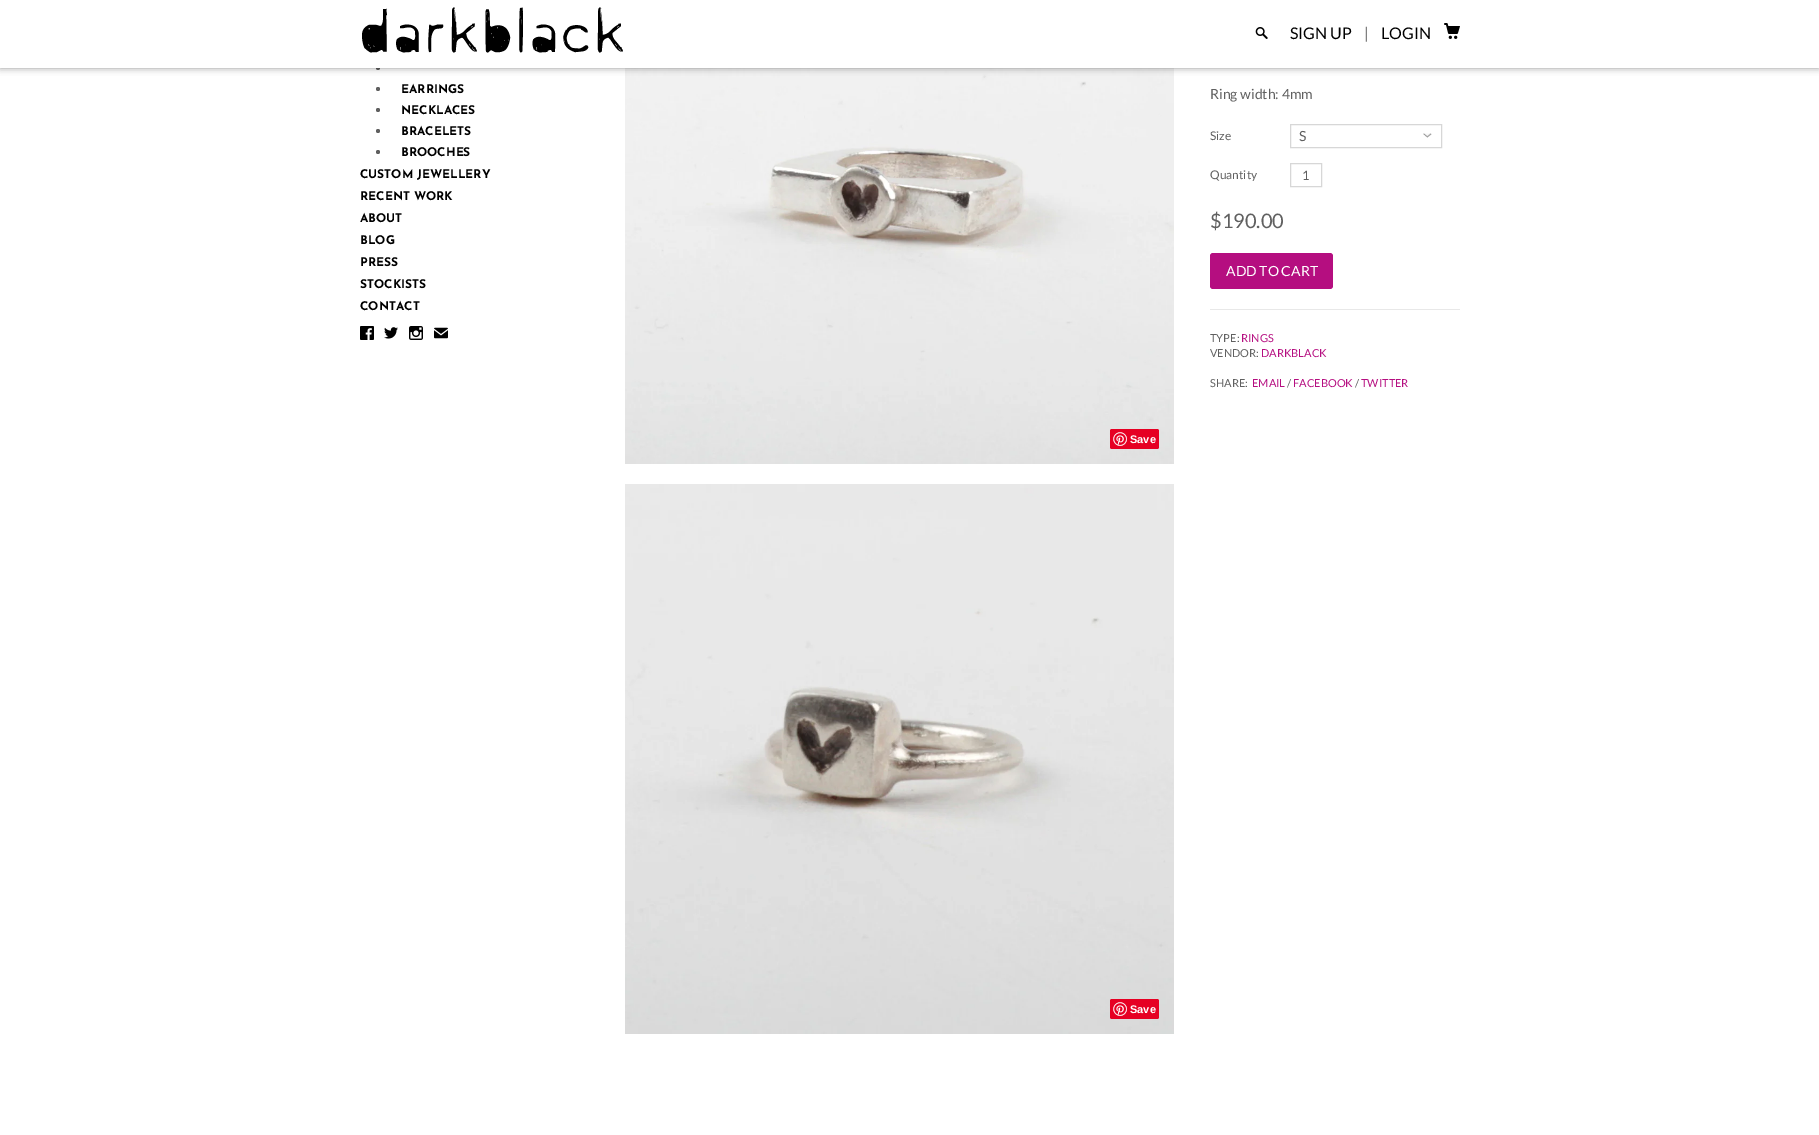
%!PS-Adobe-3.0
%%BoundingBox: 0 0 1819 1135
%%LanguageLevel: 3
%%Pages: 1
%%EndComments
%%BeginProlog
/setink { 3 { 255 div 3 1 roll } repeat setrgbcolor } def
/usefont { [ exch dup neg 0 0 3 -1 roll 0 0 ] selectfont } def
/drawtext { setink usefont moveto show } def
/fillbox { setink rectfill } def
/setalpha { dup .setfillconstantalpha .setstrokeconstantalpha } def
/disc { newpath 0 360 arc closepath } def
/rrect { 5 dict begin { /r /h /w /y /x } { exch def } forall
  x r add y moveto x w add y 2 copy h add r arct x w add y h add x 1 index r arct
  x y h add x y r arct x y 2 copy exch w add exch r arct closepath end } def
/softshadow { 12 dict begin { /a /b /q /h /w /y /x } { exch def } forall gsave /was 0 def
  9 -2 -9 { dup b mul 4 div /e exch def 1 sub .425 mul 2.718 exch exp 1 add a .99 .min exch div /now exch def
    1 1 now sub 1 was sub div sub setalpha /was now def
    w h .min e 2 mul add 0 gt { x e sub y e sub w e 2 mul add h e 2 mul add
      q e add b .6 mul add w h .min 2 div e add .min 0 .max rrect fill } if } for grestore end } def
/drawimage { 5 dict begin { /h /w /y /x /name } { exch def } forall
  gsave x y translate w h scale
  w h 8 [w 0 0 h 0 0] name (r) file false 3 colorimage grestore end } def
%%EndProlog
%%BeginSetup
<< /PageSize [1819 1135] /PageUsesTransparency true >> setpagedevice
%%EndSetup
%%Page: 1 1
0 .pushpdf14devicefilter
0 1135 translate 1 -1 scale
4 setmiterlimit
0 0 1819 1135 255 255 255 fillbox
96 96 96 setink
378 68 2 disc fill
(assets/img9.rgb) 625 68 549 396 drawimage
0 0 0 setink
0 0 1819 68 0 3.5 0.4 softshadow
0 0 1819 68 255 255 255 fillbox
(assets/img1.rgb) 362 7 261 46 drawimage
(assets/img2.rgb) 1255 27 13 12 drawimage
(SIGN UP) 1290 39 /Lato-Regular 16 0 0 0 drawtext
(|) 1364 39 /Lato-Regular 16 128 128 128 drawtext
(LOGIN) 1381 39 /Lato-Regular 16 0 0 0 drawtext
(assets/img3.rgb) 1444 23 16 16 drawimage
96 96 96 setink
378 89 2 disc fill
(EARRINGS) 401 93 /JosefinSans-Bold 12 0 0 0 drawtext
96 96 96 setink
378 110 2 disc fill
(NECKLACES) 401 114 /JosefinSans-Bold 12 0 0 0 drawtext
96 96 96 setink
378 131 2 disc fill
(BRACELETS) 401 135 /JosefinSans-Bold 12 0 0 0 drawtext
96 96 96 setink
378 152 2 disc fill
(BROOCHES) 401 156 /JosefinSans-Bold 12 0 0 0 drawtext
(CUSTOM JEWELLERY) 360 178 /JosefinSans-Bold 12 0 0 0 drawtext
(RECENT WORK) 360 200 /JosefinSans-Bold 12 0 0 0 drawtext
(ABOUT) 360 222 /JosefinSans-Bold 12 0 0 0 drawtext
(BLOG) 360 244 /JosefinSans-Bold 12 0 0 0 drawtext
(PRESS) 360 266 /JosefinSans-Bold 12 0 0 0 drawtext
(STOCKISTS) 360 288 /JosefinSans-Bold 12 0 0 0 drawtext
(CONTACT) 360 310 /JosefinSans-Bold 12 0 0 0 drawtext
(assets/img4.rgb) 360 326 14 14 drawimage
(assets/img5.rgb) 384 327 14 12 drawimage
(assets/img6.rgb) 409 326 14 14 drawimage
(assets/img7.rgb) 434 327 14 12 drawimage
(Ring width: 4mm) 1210 99 /Lato-Regular 14 96 96 96 drawtext
(Size) 1210 140 /Lato-Regular 12 96 96 96 drawtext
215 215 215 setink
1290.5 124.5 151 23 rectstroke
(S) 1299 141 /Lato-Regular 14 96 96 96 drawtext
(assets/img8.rgb) 1423 133 9 5 drawimage
(Quantity) 1210 179 /Lato-Regular 12 96 96 96 drawtext
215 215 215 setink
1290.5 163.5 31 23 rectstroke
(1) 1302 180 /Lato-Regular 13 96 96 96 drawtext
($190.00) 1210 228 /Lato-Regular 20 96 96 96 drawtext
181 14 128 setink
1210 253 123 36 3 rrect fill
(ADD TO CART) 1226 276 /Lato-Regular 14 255 255 255 drawtext
1210 309 250 1 232 232 232 fillbox
(TYPE:) 1210 342 /Lato-Regular 11 96 96 96 drawtext
(RINGS) 1241 342 /Lato-Regular 11 181 14 128 drawtext
(VENDOR:) 1210 357 /Lato-Regular 11 96 96 96 drawtext
(DARKBLACK) 1261 357 /Lato-Regular 11 181 14 128 drawtext
(SHARE:) 1210 387 /Lato-Regular 11 96 96 96 drawtext
(EMAIL) 1252 387 /Lato-Regular 11 181 14 128 drawtext
(/) 1287 387 /Lato-Regular 11 96 96 96 drawtext
(FACEBOOK) 1293 387 /Lato-Regular 11 181 14 128 drawtext
(/) 1355 387 /Lato-Regular 11 96 96 96 drawtext
(TWITTER) 1361 387 /Lato-Regular 11 181 14 128 drawtext
230 0 35 setink
1110 429 49 20 2 rrect fill
(assets/img10.rgb) 1113 432 14 14 drawimage
(Save) 1130 443 /LiberationSans-Bold 11 255 255 255 drawtext
(assets/img11.rgb) 625 484 549 550 drawimage
230 0 35 setink
1110 999 49 20 2 rrect fill
(assets/img10.rgb) 1113 1002 14 14 drawimage
(Save) 1130 1013 /LiberationSans-Bold 11 255 255 255 drawtext
.poppdf14devicefilter showpage
%%EOF
